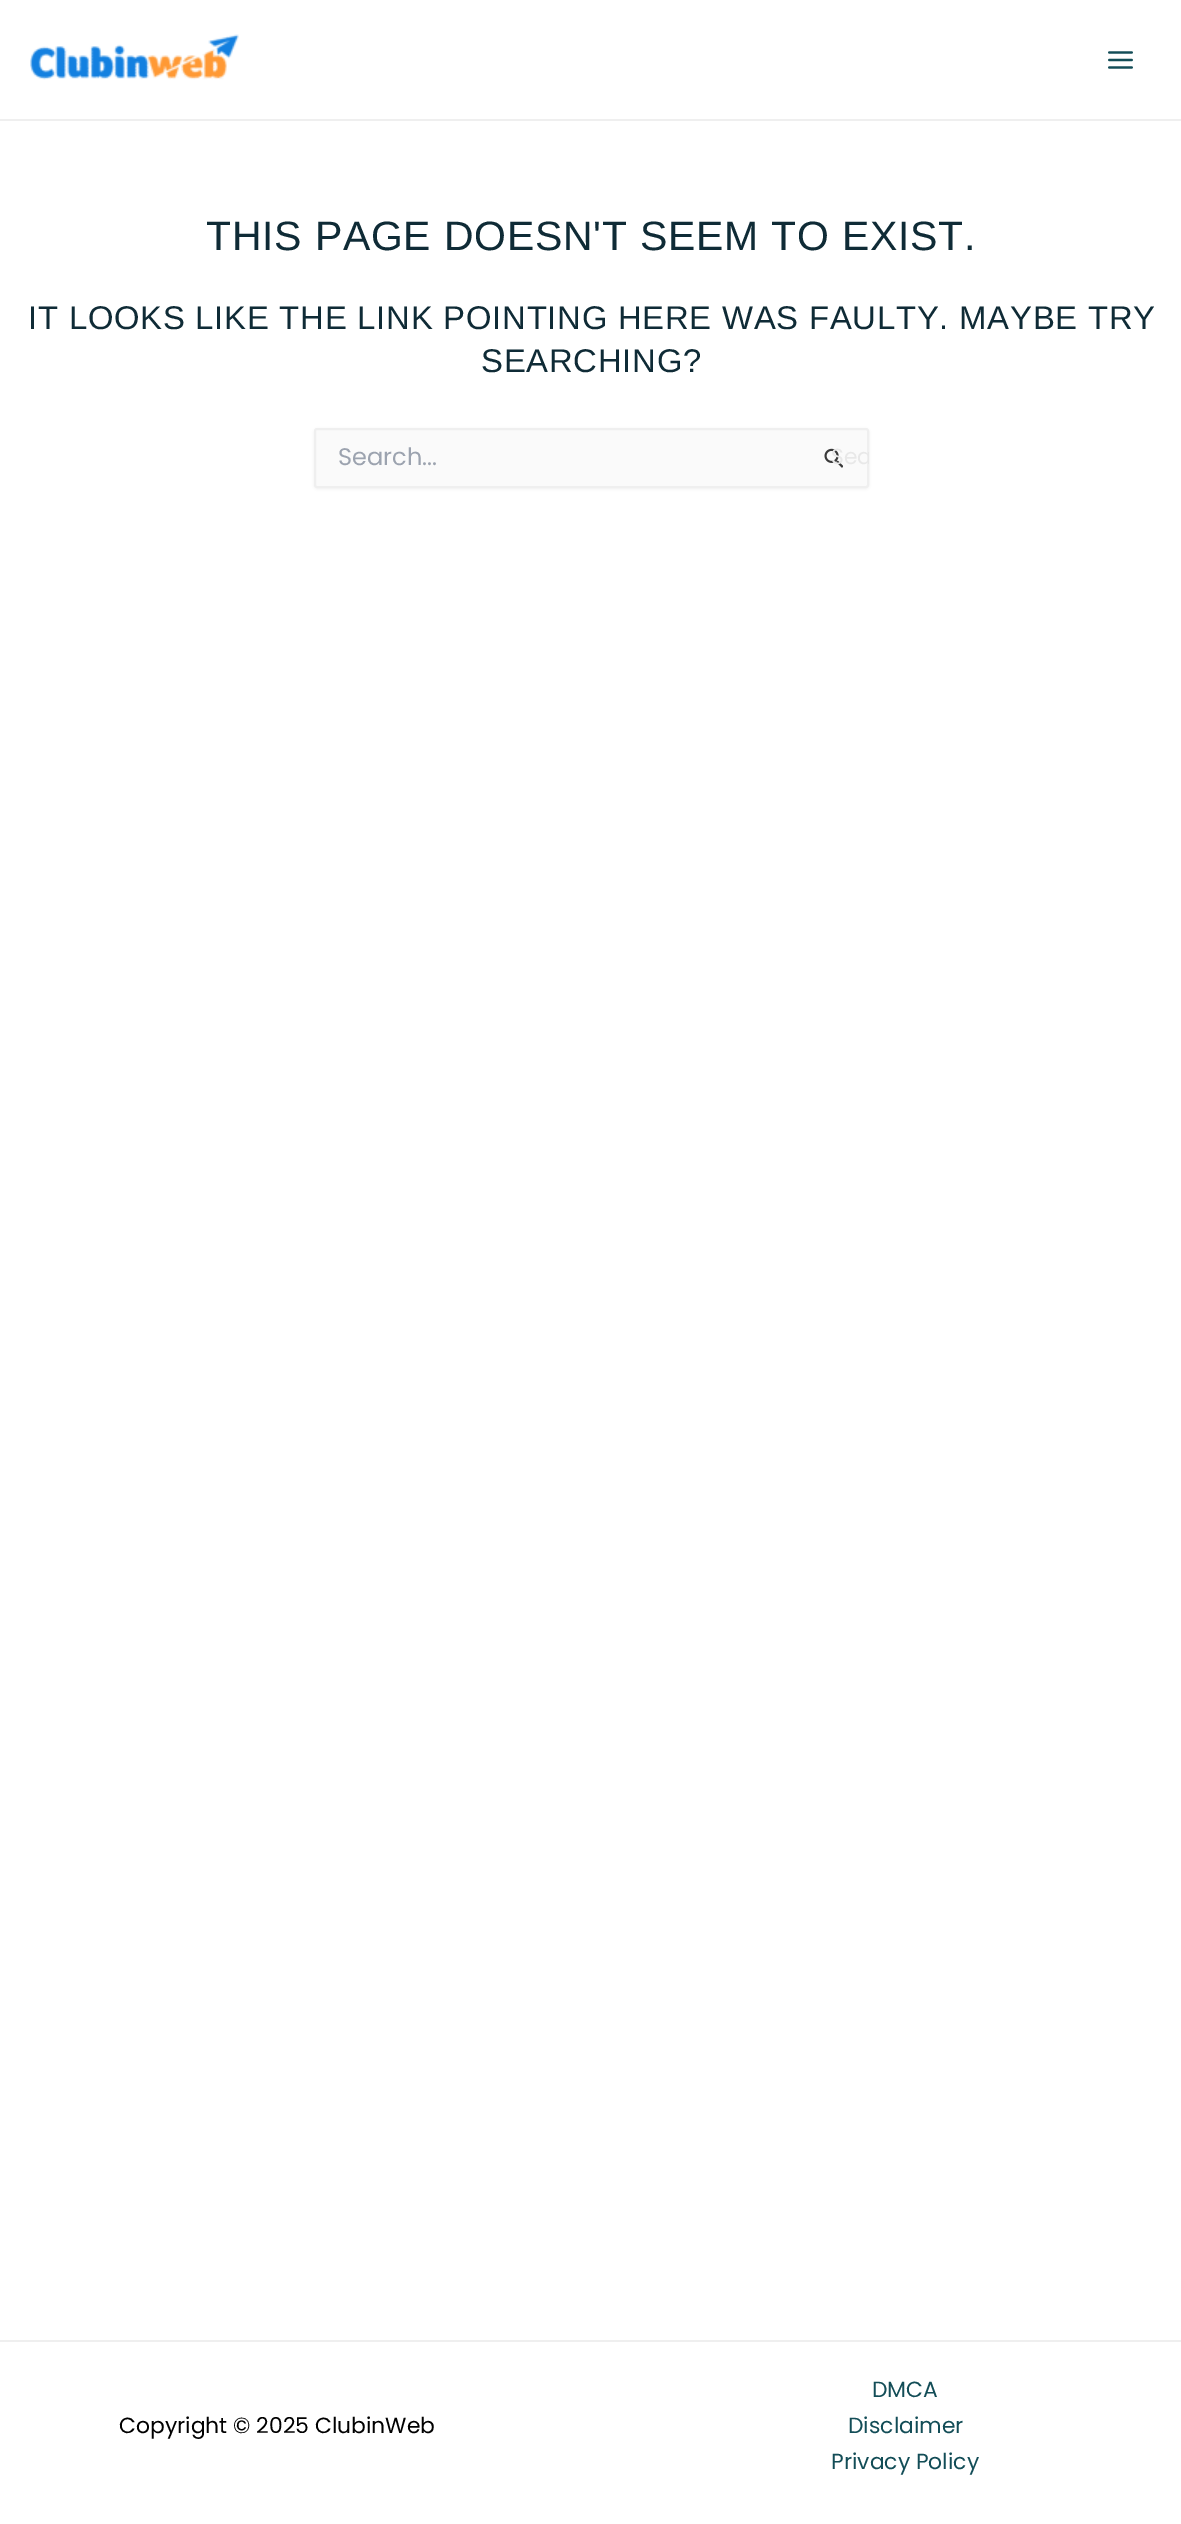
%!PS-Adobe-3.0
%%BoundingBox: 0 0 1181 2524
%%LanguageLevel: 3
%%Pages: 1
%%EndComments
%%BeginProlog
/setink { 3 { 255 div 3 1 roll } repeat setrgbcolor } def
/usefont { [ exch dup neg 0 0 3 -1 roll 0 0 ] selectfont } def
/drawtext { setink usefont moveto show } def
/fillbox { setink rectfill } def
/setalpha { dup .setfillconstantalpha .setstrokeconstantalpha } def
/rrect { 5 dict begin { /r /h /w /y /x } { exch def } forall
  x r add y moveto x w add y 2 copy h add r arct x w add y h add x 1 index r arct
  x y h add x y r arct x y 2 copy exch w add exch r arct closepath end } def
/softshadow { 12 dict begin { /a /b /q /h /w /y /x } { exch def } forall gsave /was 0 def
  9 -2 -9 { dup b mul 4 div /e exch def 1 sub .425 mul 2.718 exch exp 1 add a .99 .min exch div /now exch def
    1 1 now sub 1 was sub div sub setalpha /was now def
    w h .min e 2 mul add 0 gt { x e sub y e sub w e 2 mul add h e 2 mul add
      q e add b .6 mul add w h .min 2 div e add .min 0 .max rrect fill } if } for grestore end } def
/drawimage { 5 dict begin { /h /w /y /x /name } { exch def } forall
  gsave x y translate w h scale
  w h 8 [w 0 0 h 0 0] name (r) file false 3 colorimage grestore end } def
%%EndProlog
%%BeginSetup
<< /PageSize [1181 2524] /PageUsesTransparency true >> setpagedevice
%%EndSetup
%%Page: 1 1
0 .pushpdf14devicefilter
0 2524 translate 1 -1 scale
4 setmiterlimit
0 0 1181 2524 255 255 255 fillbox
0 119 1181 2 239 239 239 fillbox
(assets/img1.rgb) 30 34 209 46 drawimage
(assets/img2.rgb) 1108 51 25 18 drawimage
/LiberationSans-Regular 41 usefont
15 43 54 setink
206 250 moveto 0.75 0 (THIS PAGE DOESN'T SEEM TO EXIST.) ashow
/LiberationSans-Regular 32.85 usefont
28 329 moveto 0.75 0 (IT LOOKS LIKE THE LINK POINTING HERE WAS FAULTY. MAYBE TRY) ashow
481 372 moveto 0.75 0 (SEARCHING?) ashow
0 0 0 setink
314 429 555 60 3 1.5 0.05 softshadow
250 250 250 setink
315 429 553 58 2 rrect gsave fill grestore
239 239 239 setink
2 setlinewidth
stroke
(Search...) 338 465 /Poppins-Regular 24 156 163 175 drawtext
(assets/img3.rgb) 824 448 19 20 drawimage
gsave
801 428 68 60 3 rrect clip newpath
(Sea) 831 464 /Poppins-Regular 21.9 232 232 232 drawtext
grestore
0 2340 1181 2 239 239 239 fillbox
(Copyright © 2025 ClubinWeb) 119 2433 /Poppins-Regular 21.9 0 0 0 drawtext
(DMCA) 872 2397 /Poppins-Regular 21.9 19 77 87 drawtext
(Disclaimer) 848 2433 /Poppins-Regular 21.9 19 77 87 drawtext
(Privacy Policy) 831 2469 /Poppins-Regular 21.9 19 77 87 drawtext
.poppdf14devicefilter showpage
%%EOF
